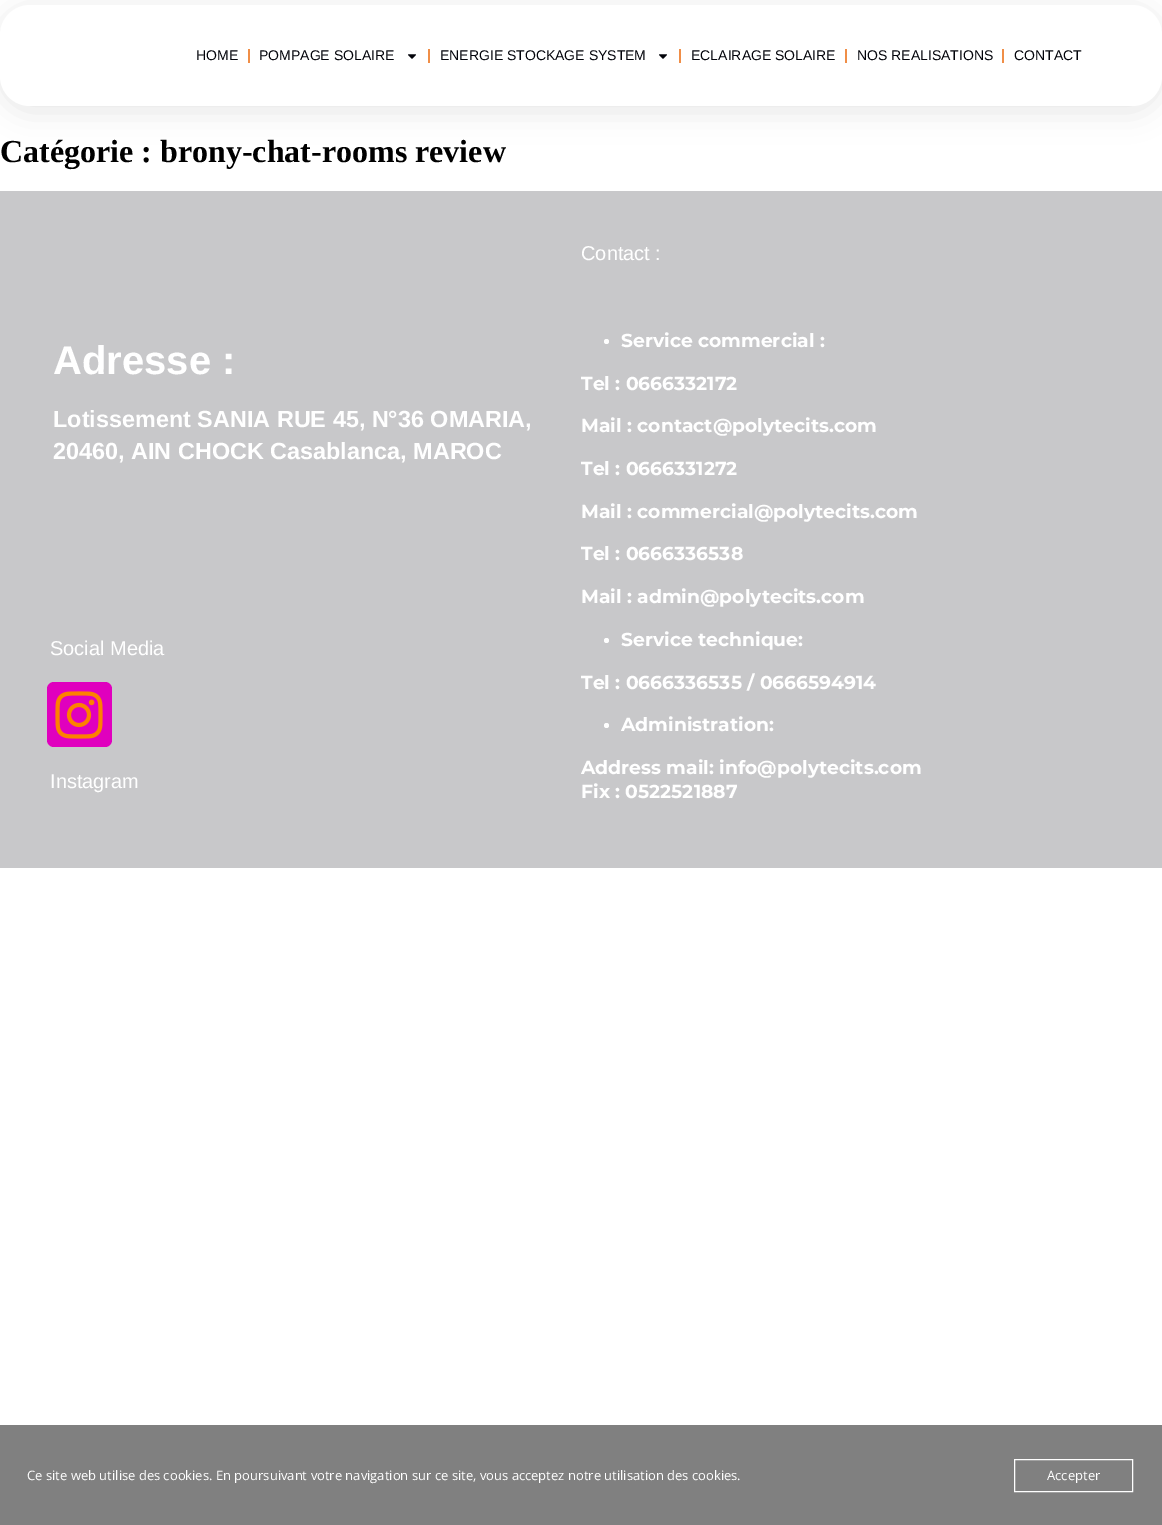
%!PS-Adobe-3.0
%%BoundingBox: 0 0 1162 1525
%%LanguageLevel: 3
%%Pages: 1
%%EndComments
%%BeginProlog
/setink { 3 { 255 div 3 1 roll } repeat setrgbcolor } def
/usefont { [ exch dup neg 0 0 3 -1 roll 0 0 ] selectfont } def
/drawtext { setink usefont moveto show } def
/fillbox { setink rectfill } def
/setalpha { dup .setfillconstantalpha .setstrokeconstantalpha } def
/disc { newpath 0 360 arc closepath } def
/rrect { 5 dict begin { /r /h /w /y /x } { exch def } forall
  x r add y moveto x w add y 2 copy h add r arct x w add y h add x 1 index r arct
  x y h add x y r arct x y 2 copy exch w add exch r arct closepath end } def
/softshadow { 12 dict begin { /a /b /q /h /w /y /x } { exch def } forall gsave /was 0 def
  9 -2 -9 { dup b mul 4 div /e exch def 1 sub .425 mul 2.718 exch exp 1 add a .99 .min exch div /now exch def
    1 1 now sub 1 was sub div sub setalpha /was now def
    w h .min e 2 mul add 0 gt { x e sub y e sub w e 2 mul add h e 2 mul add
      q e add b .6 mul add w h .min 2 div e add .min 0 .max rrect fill } if } for grestore end } def
/drawimage { 5 dict begin { /h /w /y /x /name } { exch def } forall
  gsave x y translate w h scale
  w h 8 [w 0 0 h 0 0] name (r) file false 3 colorimage grestore end } def
%%EndProlog
%%BeginSetup
<< /PageSize [1162 1525] /PageUsesTransparency true >> setpagedevice
%%EndSetup
%%Page: 1 1
0 .pushpdf14devicefilter
0 1525 translate 1 -1 scale
4 setmiterlimit
0 0 1162 1525 255 255 255 fillbox
0 0 0 setink
0 10 1162 101 30 15 0.1 softshadow
255 255 255 setink
0 5 1162 101 30 rrect fill
(HOME) 196 60 /LiberationSans-Regular 14 2 3 10 drawtext
248 49 2 14 240 142 71 fillbox
(POMPAGE SOLAIRE) 259 60 /LiberationSans-Regular 14 2 3 10 drawtext
(assets/img1.rgb) 408 54 8 5 drawimage
428 49 2 14 240 142 71 fillbox
(ENERGIE STOCKAGE SYSTEM) 440 60 /LiberationSans-Regular 14 2 3 10 drawtext
(assets/img1.rgb) 659 54 8 5 drawimage
679 49 2 14 240 142 71 fillbox
(ECLAIRAGE SOLAIRE) 691 60 /LiberationSans-Regular 14 2 3 10 drawtext
845 49 2 14 240 142 71 fillbox
(NOS REALISATIONS) 857 60 /LiberationSans-Regular 14 2 3 10 drawtext
1002 49 2 14 240 142 71 fillbox
(CONTACT) 1014 60 /LiberationSans-Regular 14 2 3 10 drawtext
(Catégorie : brony-chat-rooms review) 0 162 /LiberationSerif-Bold 32 0 0 0 drawtext
0 191 1162 677 200 200 202 fillbox
(Adresse :) 53 374 /LiberationSans-Bold 40 255 255 255 drawtext
(Lotissement SANIA RUE 45, N°36 OMARIA,) 53 427 /LiberationSans-Bold 23.4 255 255 255 drawtext
(20460, AIN CHOCK Casablanca, MAROC) 53 459 /LiberationSans-Bold 23.4 255 255 255 drawtext
(Social Media) 50 655 /LiberationSans-Regular 20 255 255 255 drawtext
224 0 190 setink
47 682 65 65 7 rrect fill
(assets/img2.rgb) 55 691 48 48 drawimage
(Instagram) 50 788 /LiberationSans-Regular 20 255 255 255 drawtext
(Contact :) 581 260 /LiberationSans-Regular 20 255 255 255 drawtext
606.5 341.5 2.5 disc fill
(Service commercial :) 621 347 /Montserrat-Bold 18.75 255 255 255 drawtext
(Tel : 0666332172) 581 390 /Montserrat-Bold 18.75 255 255 255 drawtext
(Mail : contact@polytecits.com) 581 432 /Montserrat-Bold 18.75 255 255 255 drawtext
(Tel : 0666331272) 581 475 /Montserrat-Bold 18.75 255 255 255 drawtext
(Mail : commercial@polytecits.com) 581 518 /Montserrat-Bold 18.75 255 255 255 drawtext
(Tel : 0666336538) 581 560 /Montserrat-Bold 18.75 255 255 255 drawtext
(Mail : admin@polytecits.com) 581 603 /Montserrat-Bold 18.75 255 255 255 drawtext
606.5 640.5 2.5 disc fill
(Service technique:) 621 646 /Montserrat-Bold 18.75 255 255 255 drawtext
(Tel : 0666336535 / 0666594914) 581 689 /Montserrat-Bold 18.75 255 255 255 drawtext
606.5 725.5 2.5 disc fill
(Administration:) 621 731 /Montserrat-Bold 18.75 255 255 255 drawtext
(Address mail: info@polytecits.com) 581 774 /Montserrat-Bold 18.75 255 255 255 drawtext
(Fix : 0522521887) 581 798 /Montserrat-Bold 18.75 255 255 255 drawtext
0 1425 1162 100 128 128 128 fillbox
(Ce site web utilise des cookies. En poursuivant votre navigation sur ce site, vous acceptez notre utilisation des cookies.) 27 1480 /OpenSans-Regular 13 255 255 255 drawtext
1014.5 1459.5 118 32 rectstroke
(Accepter) 1047 1480 /OpenSans-Regular 13 255 255 255 drawtext
.poppdf14devicefilter showpage
%%EOF
